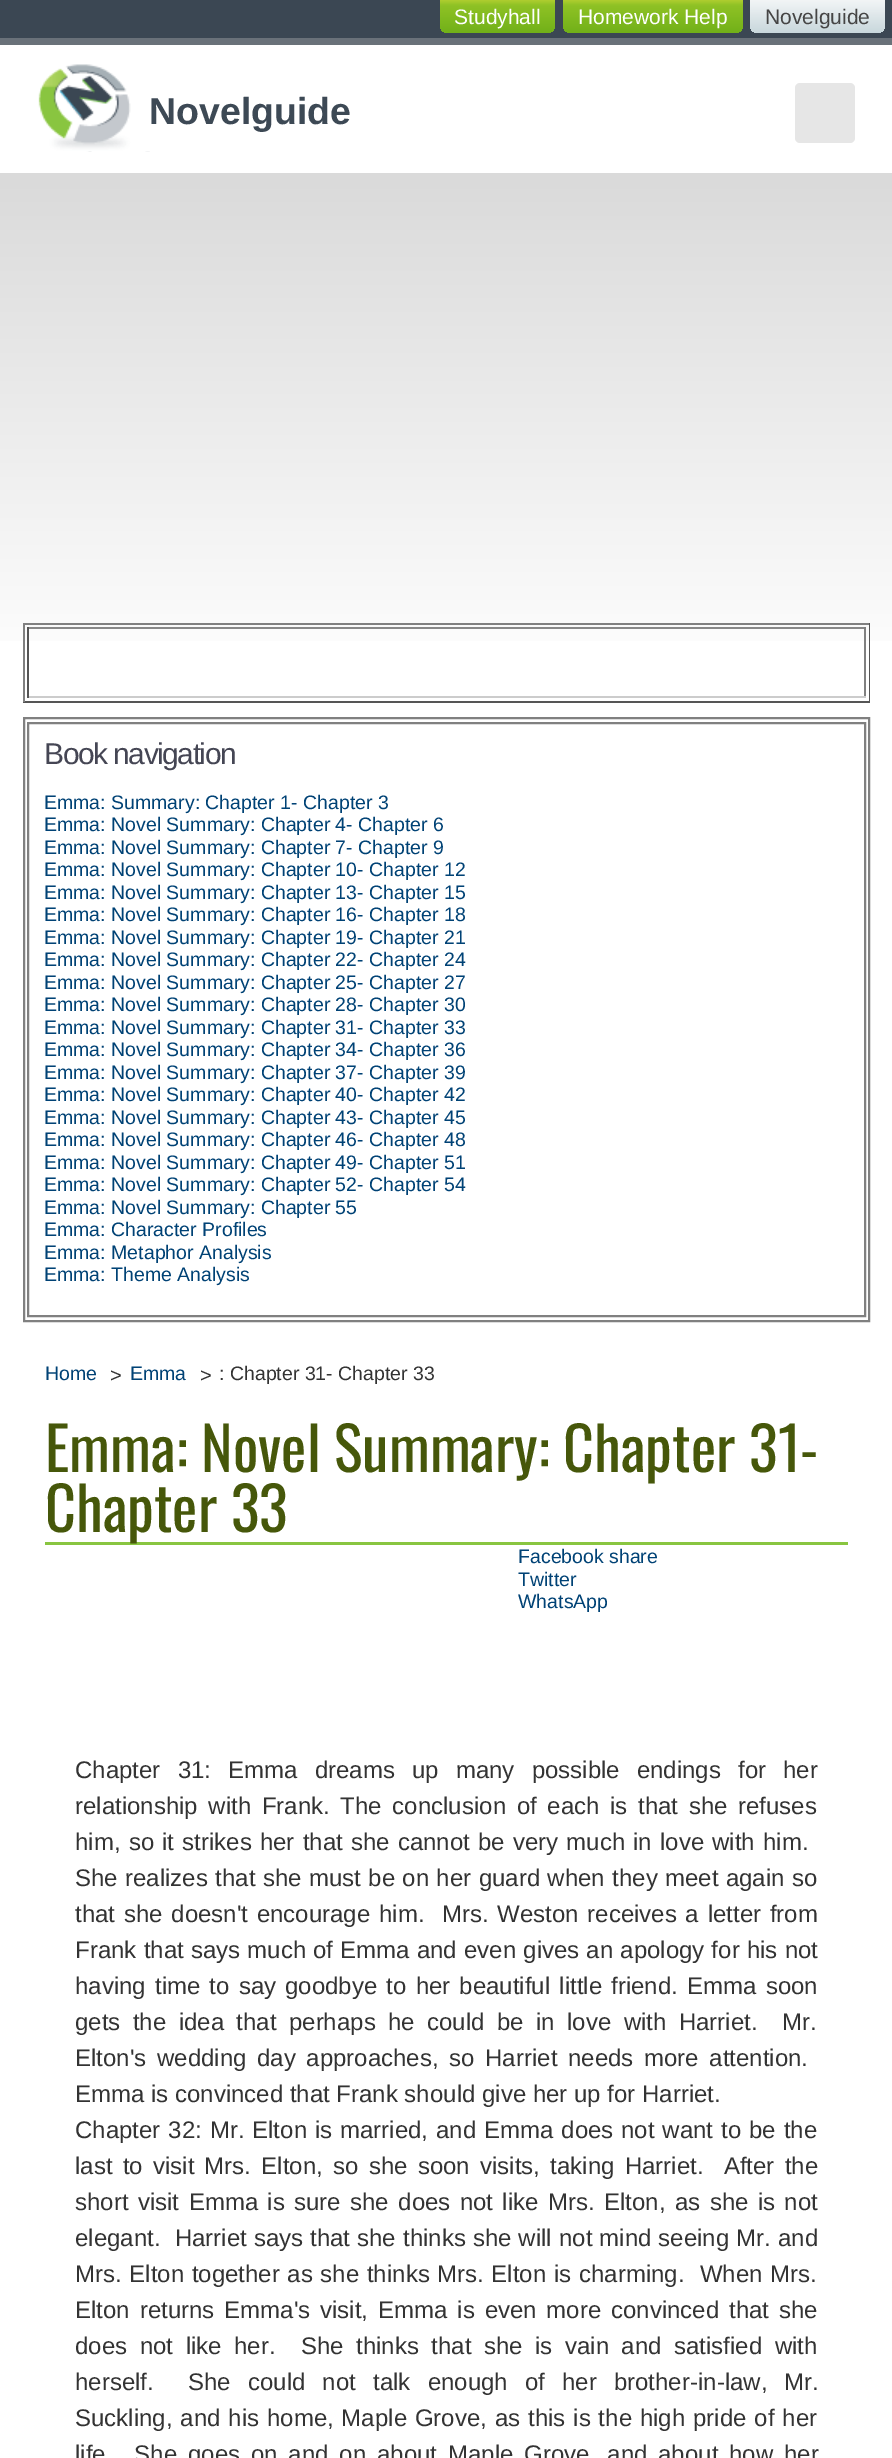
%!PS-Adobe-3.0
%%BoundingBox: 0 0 892 2458
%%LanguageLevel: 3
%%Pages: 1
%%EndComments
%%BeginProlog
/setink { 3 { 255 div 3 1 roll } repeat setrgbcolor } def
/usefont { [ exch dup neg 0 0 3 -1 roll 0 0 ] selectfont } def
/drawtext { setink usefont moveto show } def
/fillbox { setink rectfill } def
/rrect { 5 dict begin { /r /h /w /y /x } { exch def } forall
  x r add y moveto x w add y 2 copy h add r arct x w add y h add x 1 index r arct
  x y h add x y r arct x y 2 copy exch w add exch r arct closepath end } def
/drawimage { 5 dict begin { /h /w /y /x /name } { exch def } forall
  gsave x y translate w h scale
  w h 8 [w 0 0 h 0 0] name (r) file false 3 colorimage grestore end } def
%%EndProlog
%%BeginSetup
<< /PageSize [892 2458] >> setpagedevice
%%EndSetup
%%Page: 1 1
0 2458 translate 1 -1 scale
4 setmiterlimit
0 0 892 2458 255 255 255 fillbox
0 0 892 38 59 71 83 fillbox
gsave 440 0 moveto 555 0 lineto 555 25 lineto 555 29.5 551.5 33 547 33 curveto 448 33 lineto 443.5 33 440 29.5 440 25 curveto closepath clip newpath
<< /ShadingType 2 /ColorSpace /DeviceRGB /Coords [497 0 497 33] /Extend [true true] /Function << /FunctionType 3 /Domain [0 1] /Functions [<< /FunctionType 2 /Domain [0 1] /C0 [0.69 0.808 0.188] /C1 [0.561 0.761 0.145] /N 1 >> << /FunctionType 2 /Domain [0 1] /C0 [0.561 0.761 0.145] /C1 [0.443 0.69 0.098] /N 1 >>] /Bounds [0.16] /Encode [0 1 0 1] >> >> shfill grestore
(Studyhall) 454 24 /LiberationSans-Regular 21 255 255 255 drawtext
gsave 563 0 moveto 743 0 lineto 743 25 lineto 743 29.5 739.5 33 735 33 curveto 571 33 lineto 566.5 33 563 29.5 563 25 curveto closepath clip newpath
<< /ShadingType 2 /ColorSpace /DeviceRGB /Coords [653 0 653 33] /Extend [true true] /Function << /FunctionType 3 /Domain [0 1] /Functions [<< /FunctionType 2 /Domain [0 1] /C0 [0.69 0.808 0.188] /C1 [0.561 0.761 0.145] /N 1 >> << /FunctionType 2 /Domain [0 1] /C0 [0.561 0.761 0.145] /C1 [0.443 0.69 0.098] /N 1 >>] /Bounds [0.16] /Encode [0 1 0 1] >> >> shfill grestore
(Homework Help) 578 24 /LiberationSans-Regular 21 255 255 255 drawtext
gsave 750 0 moveto 885 0 lineto 885 25 lineto 885 29.5 881.5 33 877 33 curveto 758 33 lineto 753.5 33 750 29.5 750 25 curveto closepath clip newpath
<< /ShadingType 2 /ColorSpace /DeviceRGB /Coords [818 0 818 33] /Extend [true true] /Function << /FunctionType 3 /Domain [0 1] /Functions [<< /FunctionType 2 /Domain [0 1] /C0 [0.949 0.961 0.965] /C1 [0.89 0.918 0.929] /N 1 >> << /FunctionType 2 /Domain [0 1] /C0 [0.89 0.918 0.929] /C1 [0.784 0.843 0.863] /N 1 >>] /Bounds [0.37] /Encode [0 1 0 1] >> >> shfill grestore
(Novelguide) 765 24 /LiberationSans-Regular 21 69 69 69 drawtext
gsave 0 38 moveto 892 38 lineto 892 641 lineto 0 641 lineto closepath clip newpath
<< /ShadingType 2 /ColorSpace /DeviceRGB /Coords [446 0 446 675] /Extend [true true] /Function << /FunctionType 3 /Domain [0 1] /Functions [<< /FunctionType 2 /Domain [0 1] /C0 [0.388 0.416 0.455] /C1 [0.49 0.529 0.537] /N 1 >> << /FunctionType 2 /Domain [0 1] /C0 [0.851 0.851 0.851] /C1 [1 1 1] /N 1 >>] /Bounds [0.24] /Encode [0 1 0 1] >> >> shfill grestore
0 45 892 128 255 255 255 fillbox
230 230 230 setink
795 83 60 60 5 rrect fill
(assets/img1.rgb) 38 64 112 88 drawimage
(Novelguide) 149 124 /LiberationSans-Bold 37.5 61 73 85 drawtext
23 623 847 2 128 128 128 fillbox
869 623 1 79 85 85 85 fillbox
23 701 847 2 85 85 85 fillbox
23 623 2 79 128 128 128 fillbox
27 627 839 2 136 136 136 fillbox
864 627 2 71 128 128 128 fillbox
27 696 839 2 204 204 204 fillbox
27 627 2 71 85 85 85 fillbox
128 128 128 setink
2 setlinewidth
24 718 845 603 rectstroke
28 723 837 593 rectstroke
/LiberationSans-Regular 30 usefont
69 70 84 setink
44 764 moveto -1.5 0 (Book navigation) ashow
(Emma: Summary: Chapter 1- Chapter 3) 44 809 /LiberationSans-Regular 19.5 0 66 117 drawtext
(Emma: Novel Summary: Chapter 4- Chapter 6) 44 831 /LiberationSans-Regular 19.5 0 66 117 drawtext
(Emma: Novel Summary: Chapter 7- Chapter 9) 44 854 /LiberationSans-Regular 19.5 0 66 117 drawtext
(Emma: Novel Summary: Chapter 10- Chapter 12) 44 876 /LiberationSans-Regular 19.5 0 66 117 drawtext
(Emma: Novel Summary: Chapter 13- Chapter 15) 44 899 /LiberationSans-Regular 19.5 0 66 117 drawtext
(Emma: Novel Summary: Chapter 16- Chapter 18) 44 921 /LiberationSans-Regular 19.5 0 66 117 drawtext
(Emma: Novel Summary: Chapter 19- Chapter 21) 44 944 /LiberationSans-Regular 19.5 0 66 117 drawtext
(Emma: Novel Summary: Chapter 22- Chapter 24) 44 966 /LiberationSans-Regular 19.5 0 66 117 drawtext
(Emma: Novel Summary: Chapter 25- Chapter 27) 44 989 /LiberationSans-Regular 19.5 0 66 117 drawtext
(Emma: Novel Summary: Chapter 28- Chapter 30) 44 1011 /LiberationSans-Regular 19.5 0 66 117 drawtext
(Emma: Novel Summary: Chapter 31- Chapter 33) 44 1034 /LiberationSans-Regular 19.5 0 66 117 drawtext
(Emma: Novel Summary: Chapter 34- Chapter 36) 44 1056 /LiberationSans-Regular 19.5 0 66 117 drawtext
(Emma: Novel Summary: Chapter 37- Chapter 39) 44 1079 /LiberationSans-Regular 19.5 0 66 117 drawtext
(Emma: Novel Summary: Chapter 40- Chapter 42) 44 1101 /LiberationSans-Regular 19.5 0 66 117 drawtext
(Emma: Novel Summary: Chapter 43- Chapter 45) 44 1124 /LiberationSans-Regular 19.5 0 66 117 drawtext
(Emma: Novel Summary: Chapter 46- Chapter 48) 44 1146 /LiberationSans-Regular 19.5 0 66 117 drawtext
(Emma: Novel Summary: Chapter 49- Chapter 51) 44 1169 /LiberationSans-Regular 19.5 0 66 117 drawtext
(Emma: Novel Summary: Chapter 52- Chapter 54) 44 1191 /LiberationSans-Regular 19.5 0 66 117 drawtext
(Emma: Novel Summary: Chapter 55) 44 1214 /LiberationSans-Regular 19.5 0 66 117 drawtext
(Emma: Character Profiles) 44 1236 /LiberationSans-Regular 19.5 0 66 117 drawtext
(Emma: Metaphor Analysis) 44 1259 /LiberationSans-Regular 19.5 0 66 117 drawtext
(Emma: Theme Analysis) 44 1281 /LiberationSans-Regular 19.5 0 66 117 drawtext
(Home) 45 1380 /LiberationSans-Regular 19.5 0 66 117 drawtext
/LiberationSans-Regular 20 usefont
51 51 51 setink
110 1382 moveto -5 0 (>) ashow
(Emma) 130 1380 /LiberationSans-Regular 19.5 0 66 117 drawtext
/LiberationSans-Regular 20 usefont
51 51 51 setink
200 1382 moveto -5 0 (>) ashow
(: Chapter 31- Chapter 33) 219 1380 /LiberationSans-Regular 19.5 51 51 51 drawtext
45 1542 803 3 137 197 64 fillbox
(Emma: Novel Summary: Chapter 31-) 45 1472 /Oswald-Regular 60 70 87 10 drawtext
(Chapter 33) 45 1532 /Oswald-Regular 60 70 87 10 drawtext
(Facebook share) 518 1563 /LiberationSans-Regular 19.5 0 66 117 drawtext
(Twitter) 518 1586 /LiberationSans-Regular 19.5 0 66 117 drawtext
(WhatsApp) 518 1608 /LiberationSans-Regular 19.5 0 66 117 drawtext
/LiberationSans-Regular 24 usefont
51 51 51 setink
75 1778 moveto 10.5 0 32 (Chapter 31: Emma dreams up many possible endings for her) widthshow
75 1814 moveto 4 0 32 (relationship with Frank. The conclusion of each is that she refuses) widthshow
75 1850 moveto 1.5 0 32 (him, so it strikes her that she cannot be very much in love with him.) widthshow
75 1886 moveto 0.75 0 32 (She realizes that she must be on her guard when they meet again so) widthshow
75 1922 moveto 2.1 0 32 (that she doesn't encourage him.  Mrs. Weston receives a letter from) widthshow
75 1958 moveto 0.5 0 32 (Frank that says much of Emma and even gives an apology for his not) widthshow
75 1994 moveto 2.5 0 32 (having time to say goodbye to her beautiful little friend. Emma soon) widthshow
75 2030 moveto 5.75 0 32 (gets the idea that perhaps he could be in love with Harriet.  Mr.) widthshow
75 2066 moveto 4 0 32 (Elton's wedding day approaches, so Harriet needs more attention.) widthshow
(Emma is convinced that Frank should give her up for Harriet.) 75 2102 /LiberationSans-Regular 24 51 51 51 drawtext
75 2138 moveto 1.25 0 32 (Chapter 32: Mr. Elton is married, and Emma does not want to be the) widthshow
75 2174 moveto 3.6 0 32 (last to visit Mrs. Elton, so she soon visits, taking Harriet.  After the) widthshow
75 2210 moveto 2.75 0 32 (short visit Emma is sure she does not like Mrs. Elton, as she is not) widthshow
75 2246 moveto 0.4 0 32 (elegant.  Harriet says that she thinks she will not mind seeing Mr. and) widthshow
75 2282 moveto 1 0 32 (Mrs. Elton together as she thinks Mrs. Elton is charming.  When Mrs.) widthshow
75 2318 moveto 3.25 0 32 (Elton returns Emma's visit, Emma is even more convinced that she) widthshow
75 2354 moveto 5.9 0 32 (does not like her.  She thinks that she is vain and satisfied with) widthshow
75 2390 moveto 10.5 0 32 (herself.  She could not talk enough of her brother-in-law, Mr.) widthshow
75 2426 moveto 1.25 0 32 (Suckling, and his home, Maple Grove, as this is the high pride of her) widthshow
75 2462 moveto 4.25 0 32 (life.  She goes on and on about Maple Grove, and about how her) widthshow
showpage
%%EOF
